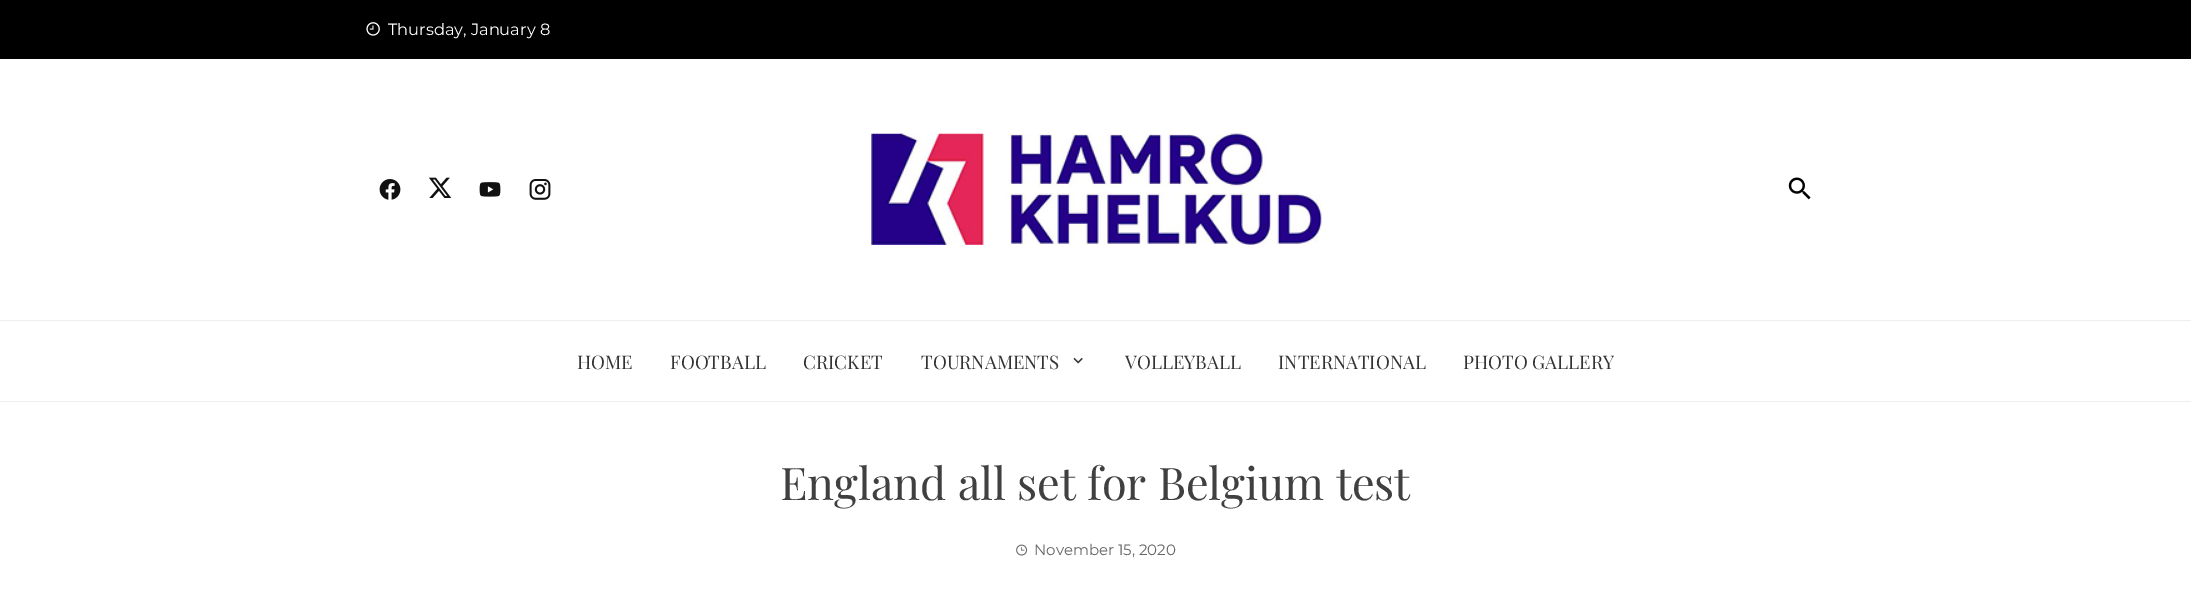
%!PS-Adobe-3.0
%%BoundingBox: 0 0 2191 613
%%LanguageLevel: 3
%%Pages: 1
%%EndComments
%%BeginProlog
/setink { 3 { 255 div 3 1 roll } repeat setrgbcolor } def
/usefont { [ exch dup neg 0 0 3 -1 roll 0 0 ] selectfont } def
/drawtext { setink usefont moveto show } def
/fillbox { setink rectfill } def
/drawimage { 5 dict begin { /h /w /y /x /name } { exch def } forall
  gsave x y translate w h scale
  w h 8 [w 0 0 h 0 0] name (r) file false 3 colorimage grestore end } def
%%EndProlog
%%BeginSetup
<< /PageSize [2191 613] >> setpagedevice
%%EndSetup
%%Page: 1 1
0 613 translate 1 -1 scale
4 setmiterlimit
0 0 2191 613 255 255 255 fillbox
0 0 2191 59 0 0 0 fillbox
(assets/img1.rgb) 366 22 14 14 drawimage
(Thursday, January 8) 388 35 /Montserrat-Regular 16.25 255 255 255 drawtext
(assets/img2.rgb) 379 179 22 21 drawimage
(assets/img3.rgb) 429 177 23 21 drawimage
(assets/img4.rgb) 479 182 22 15 drawimage
(assets/img5.rgb) 529 179 22 21 drawimage
(assets/img6.rgb) 871 133 451 112 drawimage
(assets/img7.rgb) 1788 177 23 23 drawimage
0 320 2191 1 238 238 238 fillbox
0 401 2191 1 238 238 238 fillbox
(HOME) 577 369 /PlayfairDisplay-Regular 18.75 51 51 51 drawtext
(FOOTBALL) 670 369 /PlayfairDisplay-Regular 18.75 51 51 51 drawtext
(CRICKET) 803 369 /PlayfairDisplay-Regular 18.75 51 51 51 drawtext
(TOURNAMENTS) 921 369 /PlayfairDisplay-Regular 18.75 51 51 51 drawtext
(assets/img8.rgb) 1073 357 10 7 drawimage
(VOLLEYBALL) 1125 369 /PlayfairDisplay-Regular 18.75 51 51 51 drawtext
(INTERNATIONAL) 1278 369 /PlayfairDisplay-Regular 18.75 51 51 51 drawtext
(PHOTO GALLERY) 1463 369 /PlayfairDisplay-Regular 18.75 51 51 51 drawtext
(England all set for Belgium test) 780 500 /PlayfairDisplay-Regular 45 64 64 64 drawtext
(assets/img9.rgb) 1016 544 12 12 drawimage
(November 15, 2020) 1034 555 /Montserrat-Regular 15 102 102 102 drawtext
showpage
%%EOF
